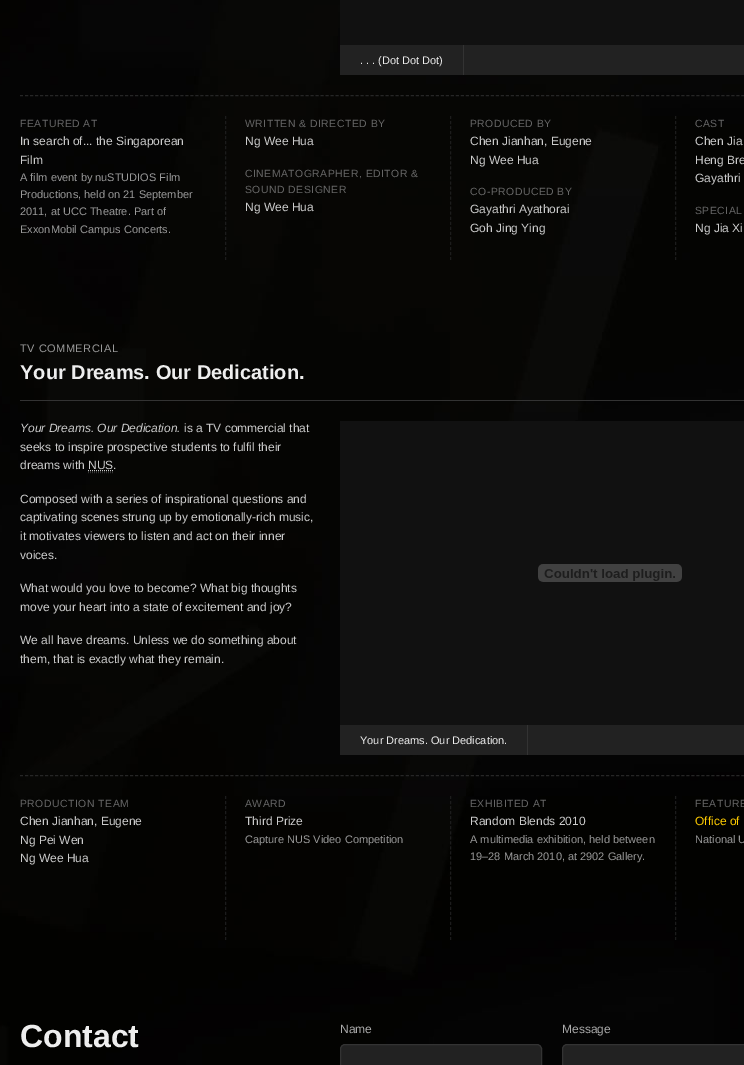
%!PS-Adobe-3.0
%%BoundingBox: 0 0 744 1065
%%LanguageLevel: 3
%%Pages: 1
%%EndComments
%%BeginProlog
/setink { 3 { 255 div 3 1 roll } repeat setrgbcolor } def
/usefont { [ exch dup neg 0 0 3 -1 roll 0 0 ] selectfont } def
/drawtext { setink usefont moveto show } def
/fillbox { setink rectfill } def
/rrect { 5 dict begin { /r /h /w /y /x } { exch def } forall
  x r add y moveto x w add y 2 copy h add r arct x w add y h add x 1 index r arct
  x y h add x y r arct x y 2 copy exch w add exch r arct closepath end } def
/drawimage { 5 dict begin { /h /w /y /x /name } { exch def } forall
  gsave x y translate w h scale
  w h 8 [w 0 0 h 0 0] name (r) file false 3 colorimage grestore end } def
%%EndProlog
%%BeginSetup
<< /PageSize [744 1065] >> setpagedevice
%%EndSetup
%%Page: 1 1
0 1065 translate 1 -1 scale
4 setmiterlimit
0 0 744 1065 255 255 255 fillbox
(assets/img1.rgb) 0 0 744 1065 drawimage
340 0 404 45 17 17 17 fillbox
340 45 404 30 34 34 34 fillbox
463 45 1 30 51 51 51 fillbox
(. . . \(Dot Dot Dot\)) 360 64 /LiberationSans-Regular 11 238 238 238 drawtext
38 38 38 setink
[3 2.01] 0 setdash
20 95.5 moveto 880 95.5 lineto stroke
/LiberationSans-Regular 10.4 usefont
102 102 102 setink
20 127 moveto 0.5 0 (FEATURED AT) ashow
(In search of... the Singaporean) 20 145 /LiberationSans-Regular 12 204 204 204 drawtext
(Film) 20 164 /LiberationSans-Regular 12 204 204 204 drawtext
(A film event by nuSTUDIOS Film) 20 181 /LiberationSans-Regular 11 153 153 153 drawtext
(Productions, held on 21 September) 20 198 /LiberationSans-Regular 11 153 153 153 drawtext
(2011, at UCC Theatre. Part of) 20 215 /LiberationSans-Regular 11 153 153 153 drawtext
(ExxonMobil Campus Concerts.) 20 233 /LiberationSans-Regular 11 153 153 153 drawtext
28 28 28 setink
[3 2.04] 0 setdash
225.5 116 moveto 225.5 260 lineto stroke
/LiberationSans-Regular 10.4 usefont
102 102 102 setink
245 127 moveto 0.5 0 (WRITTEN & DIRECTED BY) ashow
(Ng Wee Hua) 245 145 /LiberationSans-Regular 12 204 204 204 drawtext
/LiberationSans-Regular 10.4 usefont
102 102 102 setink
245 177 moveto 0.5 0 (CINEMATOGRAPHER, EDITOR &) ashow
245 193 moveto 0.5 0 (SOUND DESIGNER) ashow
(Ng Wee Hua) 245 211 /LiberationSans-Regular 12 204 204 204 drawtext
28 28 28 setink
450.5 116 moveto 450.5 260 lineto stroke
/LiberationSans-Regular 10.4 usefont
102 102 102 setink
470 127 moveto 0.5 0 (PRODUCED BY) ashow
(Chen Jianhan, Eugene) 470 145 /LiberationSans-Regular 12 204 204 204 drawtext
(Ng Wee Hua) 470 164 /LiberationSans-Regular 12 204 204 204 drawtext
/LiberationSans-Regular 10.4 usefont
102 102 102 setink
470 195 moveto 0.5 0 (CO-PRODUCED BY) ashow
(Gayathri Ayathorai) 470 213 /LiberationSans-Regular 12 204 204 204 drawtext
(Goh Jing Ying) 470 232 /LiberationSans-Regular 12 204 204 204 drawtext
28 28 28 setink
675.5 116 moveto 675.5 260 lineto stroke
/LiberationSans-Regular 10.4 usefont
102 102 102 setink
695 127 moveto 0.5 0 (CAST) ashow
(Chen Jia) 695 145 /LiberationSans-Regular 12 204 204 204 drawtext
(Heng Bre) 695 164 /LiberationSans-Regular 12 204 204 204 drawtext
(Gayathri) 695 182 /LiberationSans-Regular 12 204 204 204 drawtext
/LiberationSans-Regular 10.4 usefont
102 102 102 setink
695 214 moveto 0.5 0 (SPECIAL) ashow
(Ng Jia Xi) 695 232 /LiberationSans-Regular 12 204 204 204 drawtext
20 400 724 1 51 51 51 fillbox
/LiberationSans-Regular 11 usefont
153 153 153 setink
20 352 moveto 0.5 0 (TV COMMERCIAL) ashow
(Your Dreams. Our Dedication.) 20 379 /LiberationSans-Bold 20 238 238 238 drawtext
(Your Dreams. Our Dedication.) 20 432 /LiberationSans-Italic 12 204 204 204 drawtext
(is a TV commercial that) 184 432 /LiberationSans-Regular 12 204 204 204 drawtext
(seeks to inspire prospective students to fulfil their) 20 451 /LiberationSans-Regular 12 204 204 204 drawtext
(dreams with NUS.) 20 469 /LiberationSans-Regular 12 204 204 204 drawtext
[1 1] 0 setdash
88 470.5 moveto 113.5 470.5 lineto stroke
51 51 51 setink
88 472.5 moveto 113 472.5 lineto stroke
(Composed with a series of inspirational questions and) 20 503 /LiberationSans-Regular 12 204 204 204 drawtext
(captivating scenes strung up by emotionally-rich music,) 20 521 /LiberationSans-Regular 12 204 204 204 drawtext
(it motivates viewers to listen and act on their inner) 20 540 /LiberationSans-Regular 12 204 204 204 drawtext
(voices.) 20 559 /LiberationSans-Regular 12 204 204 204 drawtext
(What would you love to become? What big thoughts) 20 592 /LiberationSans-Regular 12 204 204 204 drawtext
(move your heart into a state of excitement and joy?) 20 611 /LiberationSans-Regular 12 204 204 204 drawtext
(We all have dreams. Unless we do something about) 20 644 /LiberationSans-Regular 12 204 204 204 drawtext
(them, that is exactly what they remain.) 20 663 /LiberationSans-Regular 12 204 204 204 drawtext
340 421 404 304 17 17 17 fillbox
(assets/img2.rgb) 538 564 144 18 drawimage
340 725 404 30 34 34 34 fillbox
527 725 1 30 51 51 51 fillbox
(Your Dreams. Our Dedication.) 360 744 /LiberationSans-Regular 11 238 238 238 drawtext
38 38 38 setink
[3 2.01] 0 setdash
20 775.5 moveto 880 775.5 lineto stroke
/LiberationSans-Regular 10.4 usefont
102 102 102 setink
20 807 moveto 0.5 0 (PRODUCTION TEAM) ashow
(Chen Jianhan, Eugene) 20 825 /LiberationSans-Regular 12 204 204 204 drawtext
(Ng Pei Wen) 20 844 /LiberationSans-Regular 12 204 204 204 drawtext
(Ng Wee Hua) 20 862 /LiberationSans-Regular 12 204 204 204 drawtext
28 28 28 setink
[3 2.04] 0 setdash
225.5 796 moveto 225.5 940 lineto stroke
/LiberationSans-Regular 10.4 usefont
102 102 102 setink
245 807 moveto 0.5 0 (AWARD) ashow
(Third Prize) 245 825 /LiberationSans-Regular 12 204 204 204 drawtext
(Capture NUS Video Competition) 245 843 /LiberationSans-Regular 11 153 153 153 drawtext
28 28 28 setink
450.5 796 moveto 450.5 940 lineto stroke
/LiberationSans-Regular 10.4 usefont
102 102 102 setink
470 807 moveto 0.5 0 (EXHIBITED AT) ashow
(Random Blends 2010) 470 825 /LiberationSans-Regular 12 204 204 204 drawtext
(A multimedia exhibition, held between) 470 843 /LiberationSans-Regular 11 153 153 153 drawtext
(19–28 March 2010, at 2902 Gallery.) 470 860 /LiberationSans-Regular 11 153 153 153 drawtext
28 28 28 setink
675.5 796 moveto 675.5 940 lineto stroke
/LiberationSans-Regular 10.4 usefont
102 102 102 setink
695 807 moveto 0.5 0 (FEATURE) ashow
(Office of) 695 825 /LiberationSans-Regular 12 255 204 0 drawtext
(National U) 695 843 /LiberationSans-Regular 11 153 153 153 drawtext
(Contact) 20 1047 /LiberationSans-Bold 32 238 238 238 drawtext
(Name) 340 1033 /LiberationSans-Regular 12 170 170 170 drawtext
34 34 34 setink
340.5 1044.5 201 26 4.5 rrect gsave fill grestore
51 51 51 setink
[] 0 setdash
stroke
(Message) 562 1033 /LiberationSans-Regular 12 170 170 170 drawtext
34 34 34 setink
562.5 1044.5 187 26 4.5 rrect gsave fill grestore
51 51 51 setink
stroke
showpage
%%EOF
